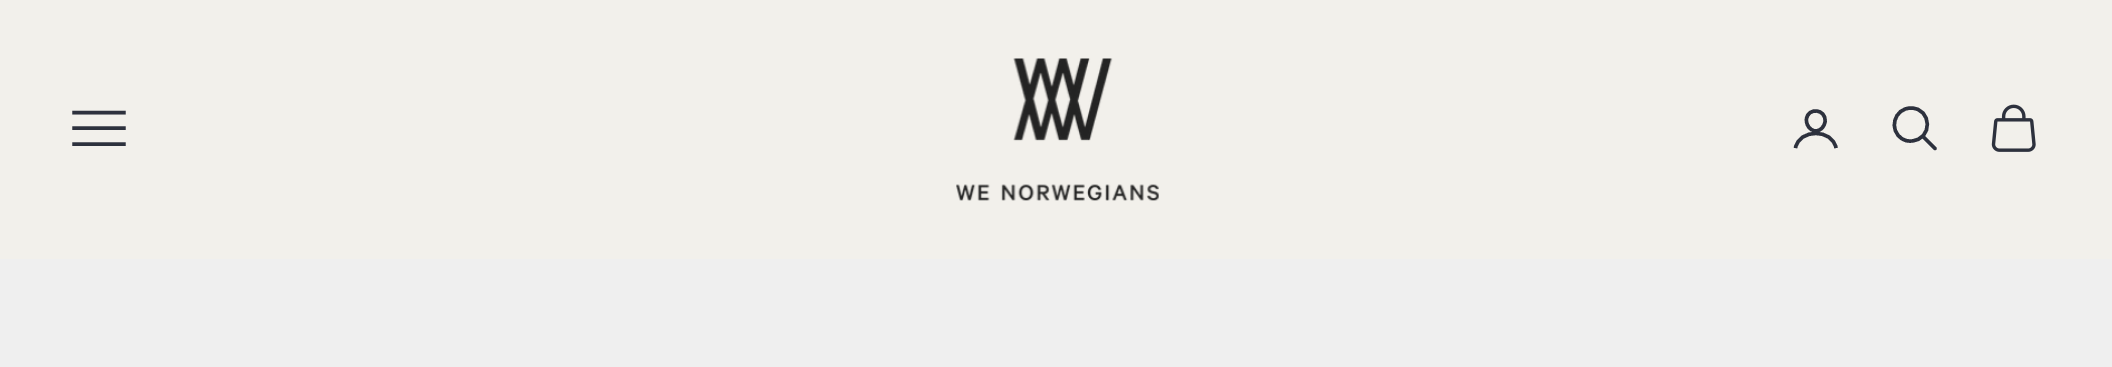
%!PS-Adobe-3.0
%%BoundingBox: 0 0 2112 367
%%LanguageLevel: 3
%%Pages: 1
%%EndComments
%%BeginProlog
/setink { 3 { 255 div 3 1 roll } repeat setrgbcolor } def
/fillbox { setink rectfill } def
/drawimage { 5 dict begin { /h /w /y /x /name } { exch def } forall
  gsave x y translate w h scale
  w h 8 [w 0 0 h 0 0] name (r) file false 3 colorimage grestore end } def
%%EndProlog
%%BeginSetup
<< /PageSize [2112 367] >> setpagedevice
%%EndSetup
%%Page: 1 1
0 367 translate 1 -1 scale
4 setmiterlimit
0 0 2112 367 239 239 239 fillbox
0 0 2112 259 242 240 235 fillbox
45 49 61 setink
3.4 setlinewidth
2 setlinecap
74 144 moveto 124 144 lineto 74 128 moveto 124 128 lineto 74 112.5 moveto 124 112.5 lineto stroke
(assets/img1.rgb) 956 58 203 143 drawimage
1 setlinecap
1 setlinejoin
1825 121 moveto 1825 123.5 1824 126 1822 128 curveto 1815 135.5 1805.5 127.5 1806.5 119 curveto 1808 107 1826 109 1825 121 curveto closepath stroke
0 setlinecap
0 setlinejoin
1795.5 148 moveto 1799 128.5 1832.5 128.5 1836 148 curveto stroke
1911 108 moveto 1894 108 1888 130.5 1902.5 139 curveto 1905 140.5 1908 141.5 1911 141 curveto 1933.5 140 1932 108 1911 108 curveto closepath stroke
1 setlinecap
1923.5 137 moveto 1935 148.5 lineto stroke
(assets/img2.rgb) 1991 104 45 48 drawimage
showpage
%%EOF
